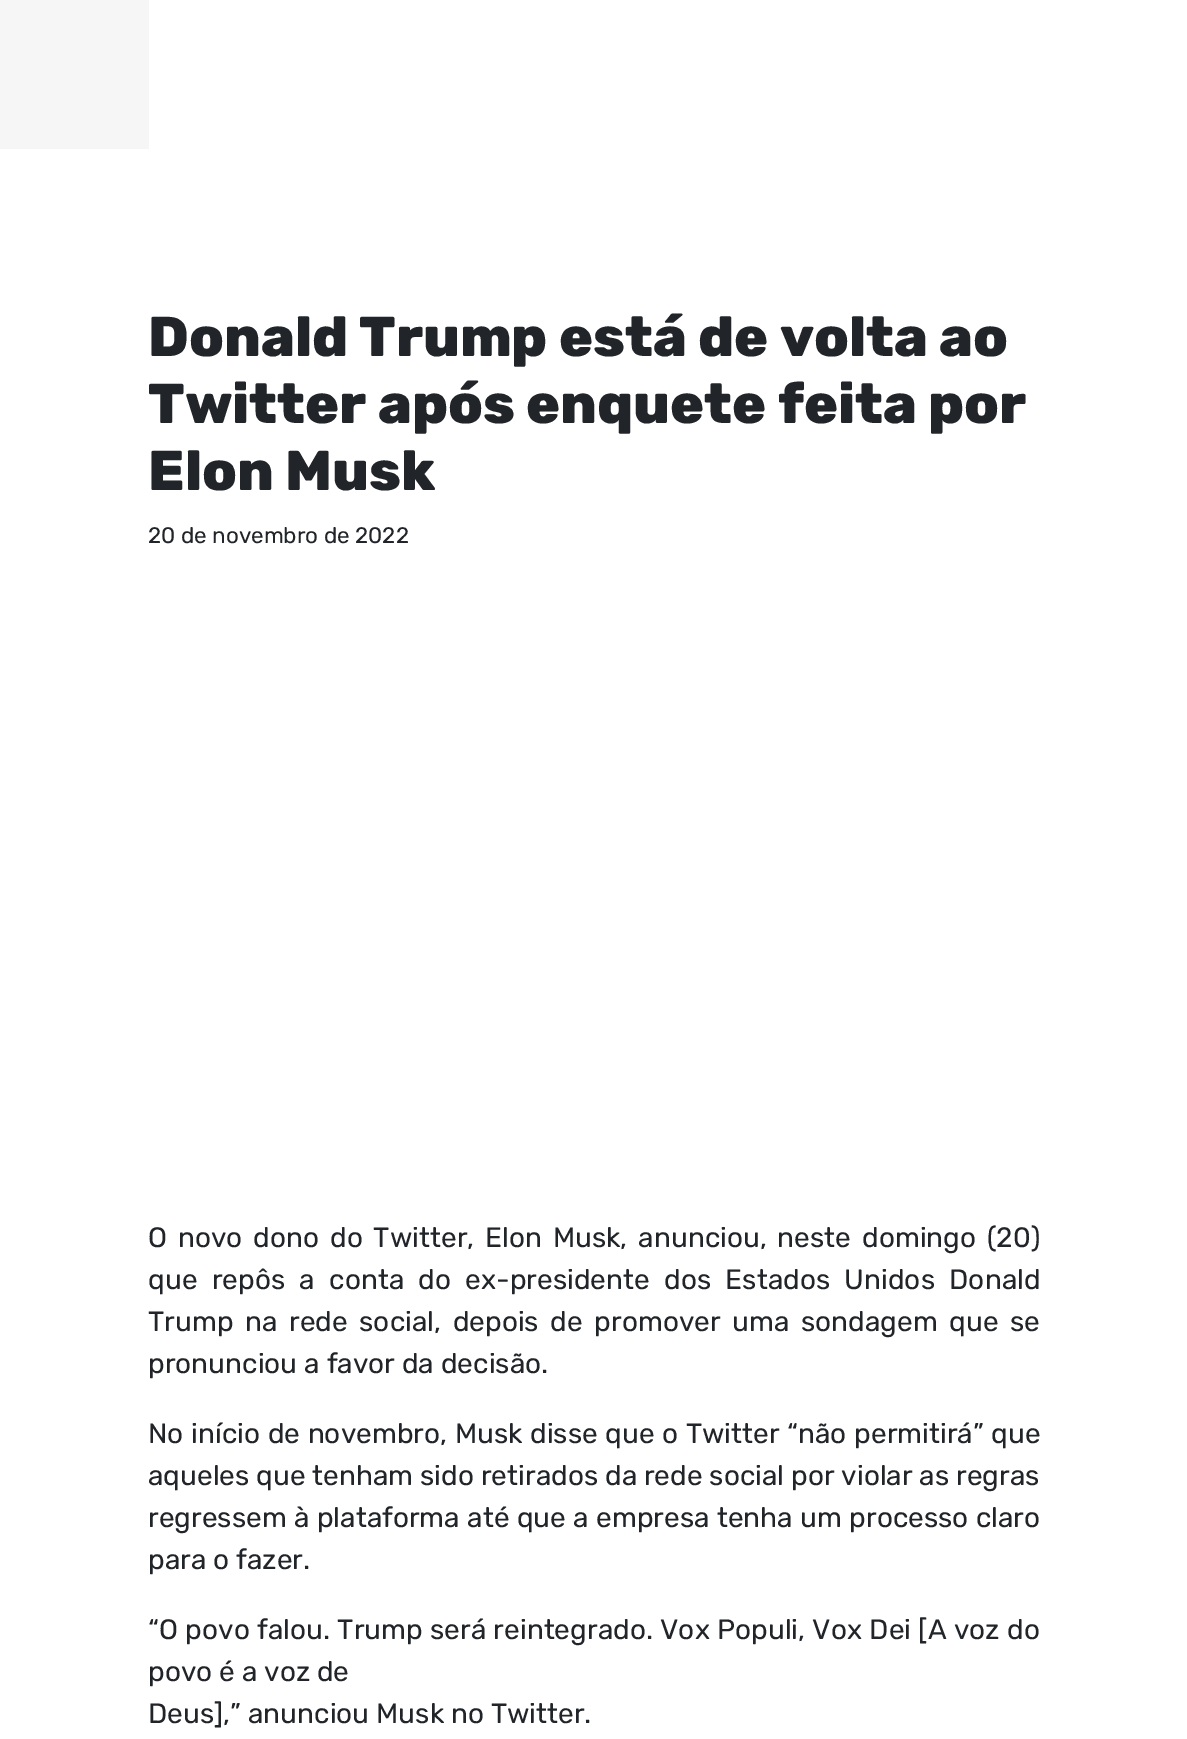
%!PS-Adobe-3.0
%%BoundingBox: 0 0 1187 1739
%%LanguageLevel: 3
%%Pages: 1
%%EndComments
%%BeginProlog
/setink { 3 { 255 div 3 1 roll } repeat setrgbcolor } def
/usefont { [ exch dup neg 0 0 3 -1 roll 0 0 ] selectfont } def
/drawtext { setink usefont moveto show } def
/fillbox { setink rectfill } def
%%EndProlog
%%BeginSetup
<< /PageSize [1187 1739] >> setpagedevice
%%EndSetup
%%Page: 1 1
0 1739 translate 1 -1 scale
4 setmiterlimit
0 0 1187 1739 255 255 255 fillbox
0 0 149 149 246 246 246 fillbox
(Donald Trump está de volta ao) 148 356 /Rubik-ExtraBold 56 33 37 41 drawtext
(Twitter após enquete feita por) 148 423 /Rubik-ExtraBold 56 33 37 41 drawtext
(Elon Musk) 148 490 /Rubik-ExtraBold 56 33 37 41 drawtext
(20 de novembro de 2022) 148 543 /Rubik-Regular 22.4 33 37 41 drawtext
/Rubik-Regular 28 usefont
148 1247 moveto 4 0 32 (O novo dono do Twitter, Elon Musk, anunciou, neste domingo \(20\)) widthshow
148 1289 moveto 7.5 0 32 (que repôs a conta do ex-presidente dos Estados Unidos Donald) widthshow
148 1331 moveto 4.75 0 32 (Trump na rede social, depois de promover uma sondagem que se) widthshow
(pronunciou a favor da decisão.) 148 1373 /Rubik-Regular 28 33 37 41 drawtext
148 1443 moveto 0.75 0 32 (No início de novembro, Musk disse que o Twitter “não permitirá” que) widthshow
(aqueles que tenham sido retirados da rede social por violar as regras) 148 1485 /Rubik-Regular 28 33 37 41 drawtext
148 1527 moveto 0.5 0 32 (regressem à plataforma até que a empresa tenha um processo claro) widthshow
(para o fazer.) 148 1569 /Rubik-Regular 28 33 37 41 drawtext
148 1639 moveto 0.5 0 32 (“O povo falou. Trump será reintegrado. Vox Populi, Vox Dei [A voz do) widthshow
(povo é a voz de) 148 1681 /Rubik-Regular 28 33 37 41 drawtext
(Deus],” anunciou Musk no Twitter.) 148 1723 /Rubik-Regular 28 33 37 41 drawtext
showpage
%%EOF
